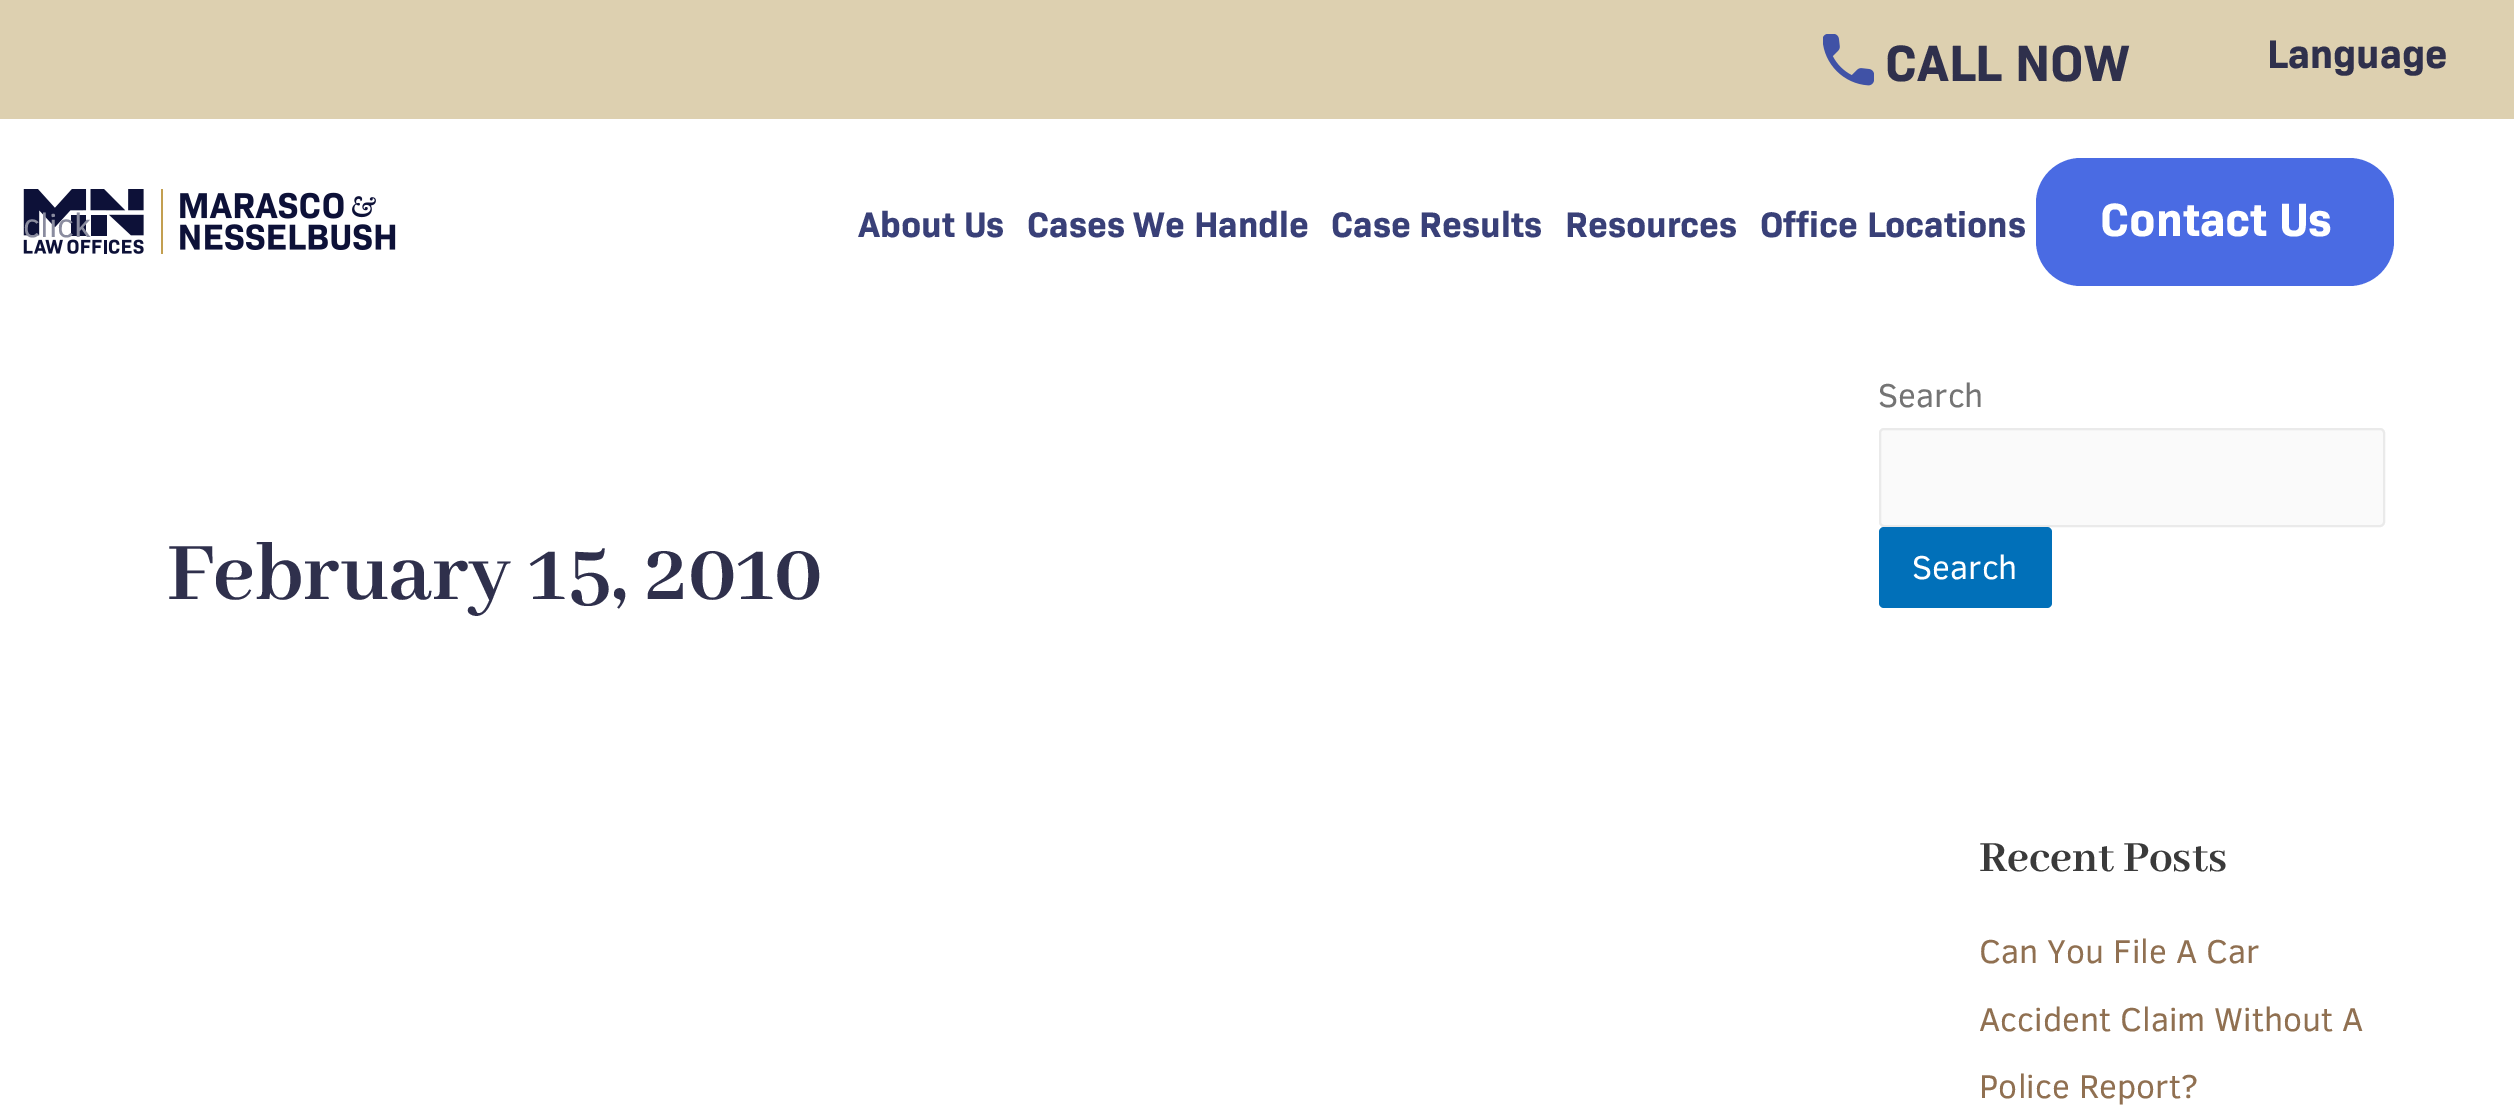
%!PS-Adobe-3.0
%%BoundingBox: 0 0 2514 1108
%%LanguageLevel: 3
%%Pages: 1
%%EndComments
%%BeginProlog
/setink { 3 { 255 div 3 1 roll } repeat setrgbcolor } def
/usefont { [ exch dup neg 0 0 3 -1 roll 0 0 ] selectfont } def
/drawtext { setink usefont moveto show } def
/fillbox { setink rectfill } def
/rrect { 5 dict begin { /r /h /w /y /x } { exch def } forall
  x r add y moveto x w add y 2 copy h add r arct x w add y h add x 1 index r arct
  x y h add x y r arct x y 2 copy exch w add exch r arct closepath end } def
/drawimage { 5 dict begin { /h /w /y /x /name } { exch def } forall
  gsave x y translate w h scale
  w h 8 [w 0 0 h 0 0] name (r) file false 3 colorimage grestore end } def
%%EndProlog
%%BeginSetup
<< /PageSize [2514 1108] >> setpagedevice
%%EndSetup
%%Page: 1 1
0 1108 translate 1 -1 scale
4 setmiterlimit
0 0 2514 1108 255 255 255 fillbox
0 0 2514 119 221 208 176 fillbox
(assets/img1.rgb) 1823 34 51 52 drawimage
(CALL NOW) 1885 81 /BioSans-Bold 51.75 47 48 76 drawtext
(Language) 2267 68 /BioSans-Bold 40.5 47 48 76 drawtext
(assets/img2.rgb) 23 189 373 65 drawimage
(click) 23 237 /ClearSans-Regular 33.75 138 140 159 drawtext
(About Us) 858 237 /BioSans-Bold 36 57 64 120 drawtext
(Cases We Handle) 1027 237 /BioSans-Bold 36 57 64 120 drawtext
(Case Results) 1331 237 /BioSans-Bold 36 57 64 120 drawtext
(Resources) 1565 237 /BioSans-Bold 36 57 64 120 drawtext
(Office Locations) 1760 237 /BioSans-Bold 36 57 64 120 drawtext
74 107 227 setink
2036 158 358 128 45 rrect fill
(Contact Us) 2100 236 /BioSans-Bold 47.25 255 255 255 drawtext
(February 15, 2010) 167 599 /AbhayaLibre-Bold 90 47 48 76 drawtext
(Search) 1878 407 /ClearSans-Regular 33.75 116 116 116 drawtext
250 250 250 setink
1880 429 504 97 4 rrect gsave fill grestore
234 234 234 setink
2 setlinewidth
stroke
1 112 185 setink
1879 527 173 81 5 rrect fill
(Search) 1912 579 /ClearSans-Regular 33.75 255 255 255 drawtext
(Recent Posts) 1979 871 /AbhayaLibre-Bold 47.25 58 58 58 drawtext
(Can You File A Car) 1979 963 /ClearSans-Regular 33.75 144 112 81 drawtext
(Accident Claim Without A) 1979 1031 /ClearSans-Regular 33.75 144 112 81 drawtext
(Police Report?) 1979 1098 /ClearSans-Regular 33.75 144 112 81 drawtext
showpage
%%EOF
